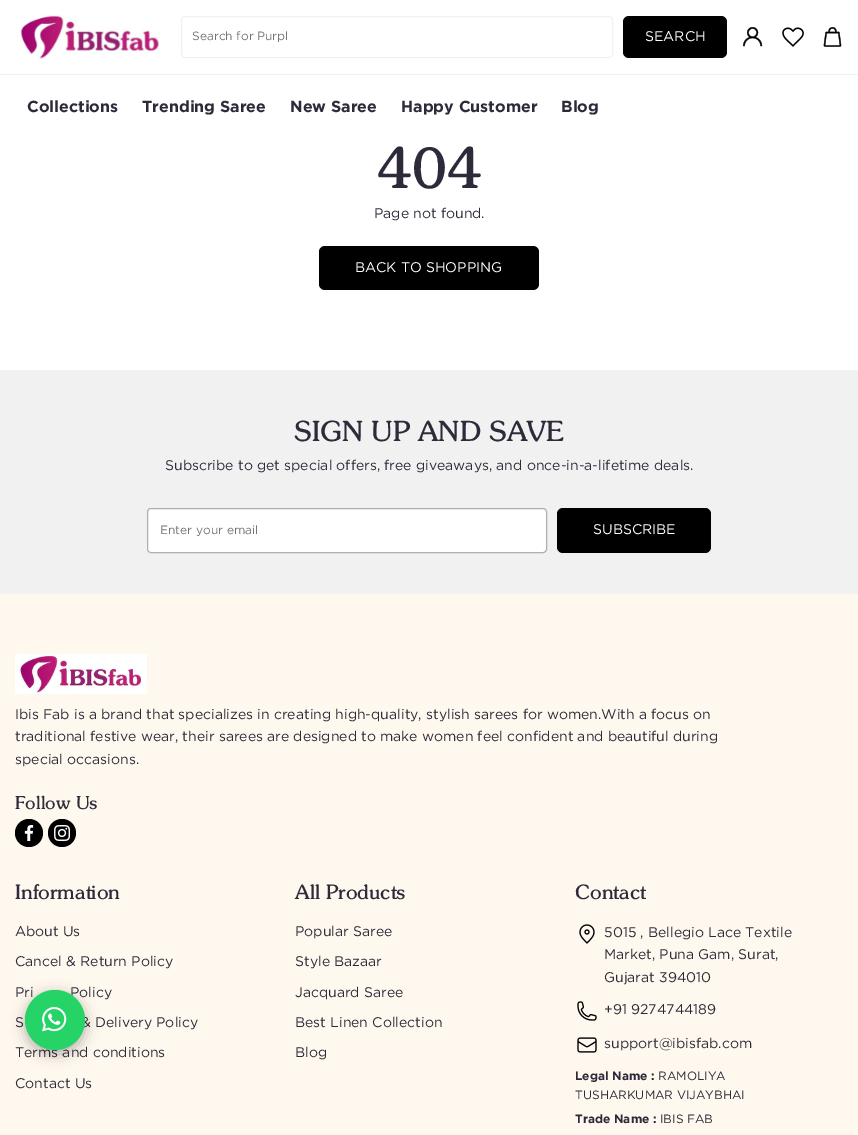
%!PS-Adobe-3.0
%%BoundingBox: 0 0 858 1135
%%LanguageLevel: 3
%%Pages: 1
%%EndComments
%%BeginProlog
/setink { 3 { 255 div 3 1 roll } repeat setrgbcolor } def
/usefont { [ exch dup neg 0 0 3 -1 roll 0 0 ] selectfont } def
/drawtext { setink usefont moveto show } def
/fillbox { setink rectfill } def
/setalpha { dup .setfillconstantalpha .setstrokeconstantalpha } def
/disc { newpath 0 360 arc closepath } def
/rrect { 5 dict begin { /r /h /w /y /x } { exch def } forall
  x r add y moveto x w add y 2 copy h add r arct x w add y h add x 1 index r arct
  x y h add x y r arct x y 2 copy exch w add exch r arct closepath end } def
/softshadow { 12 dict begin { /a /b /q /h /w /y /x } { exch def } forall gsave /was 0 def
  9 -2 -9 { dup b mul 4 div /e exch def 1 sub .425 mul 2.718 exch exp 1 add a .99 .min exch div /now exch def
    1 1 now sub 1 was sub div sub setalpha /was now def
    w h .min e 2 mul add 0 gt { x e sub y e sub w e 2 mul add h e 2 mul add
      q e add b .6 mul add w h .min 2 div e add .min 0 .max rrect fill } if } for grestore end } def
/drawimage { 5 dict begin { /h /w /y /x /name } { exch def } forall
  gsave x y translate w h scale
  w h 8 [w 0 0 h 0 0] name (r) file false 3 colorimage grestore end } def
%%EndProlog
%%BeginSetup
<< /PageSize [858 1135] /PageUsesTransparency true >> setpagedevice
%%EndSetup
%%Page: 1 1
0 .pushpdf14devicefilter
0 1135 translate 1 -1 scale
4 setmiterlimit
0 0 858 1135 255 255 255 fillbox
0 74 858 1 241 241 241 fillbox
(assets/img1.rgb) 20 14 139 46 drawimage
181.5 16.5 431 41 3.5 rrect stroke
(Search for Purpl) 192 40 /Gotham-Regular 12 117 117 117 drawtext
0 0 0 setink
623 16 104 42 6 rrect fill
(SEARCH) 645 41 /Gotham-Regular 14 255 255 255 drawtext
(assets/img2.rgb) 743 27 20 20 drawimage
(assets/img3.rgb) 782 27 22 20 drawimage
(assets/img4.rgb) 823 27 19 20 drawimage
(Collections) 27 112 /Gotham-Bold 16 46 42 57 drawtext
(Trending Saree) 142 112 /Gotham-Bold 16 46 42 57 drawtext
(New Saree) 290 112 /Gotham-Bold 16 46 42 57 drawtext
(Happy Customer) 401 112 /Gotham-Bold 16 46 42 57 drawtext
(Blog) 561 112 /Gotham-Bold 16 46 42 57 drawtext
(404) 377 188 /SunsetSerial-Regular 56 46 42 57 drawtext
(Page not found.) 374 218 /Gotham-Regular 14 46 42 57 drawtext
0 0 0 setink
319 246 220 44 6 rrect fill
(BACK TO SHOPPING) 355 272 /Gotham-Regular 14 255 255 255 drawtext
0 370 858 224 241 241 241 fillbox
(SIGN UP AND SAVE) 294 441 /SunsetSerial-Regular 28 46 42 57 drawtext
(Subscribe to get special offers, free giveaways, and once-in-a-lifetime deals.) 165 470 /Gotham-Regular 14 46 42 57 drawtext
255 255 255 setink
147.5 508.5 399 44 3.5 rrect gsave fill grestore
175 175 175 setink
stroke
(Enter your email) 160 534 /Gotham-Regular 12 117 117 117 drawtext
0 0 0 setink
557 508 154 45 6 rrect fill
(SUBSCRIBE) 593 534 /Gotham-Regular 14 255 255 255 drawtext
0 594 858 541 255 248 239 fillbox
(assets/img5.rgb) 15 654 132 40 drawimage
(Ibis Fab is a brand that specializes in creating high-quality, stylish sarees for women.With a focus on) 15 719 /Gotham-Regular 14 46 42 57 drawtext
(traditional festive wear, their sarees are designed to make women feel confident and beautiful during) 15 741 /Gotham-Regular 14 46 42 57 drawtext
(special occasions.) 15 764 /Gotham-Regular 14 46 42 57 drawtext
(Follow Us) 15 809 /SunsetSerial-Regular 18 46 42 57 drawtext
0 0 0 setink
29 833 14 disc fill
(assets/img6.rgb) 24 825 10 16 drawimage
62 833 14 disc fill
(assets/img7.rgb) 54 825 16 16 drawimage
(Information) 15 899 /SunsetSerial-Regular 20 46 42 57 drawtext
(About Us) 15 936 /Gotham-Regular 14 46 42 57 drawtext
(Cancel & Return Policy) 15 966 /Gotham-Regular 14 46 42 57 drawtext
(Pri) 15 997 /Gotham-Regular 14 46 42 57 drawtext
(Policy) 70 997 /Gotham-Regular 14 46 42 57 drawtext
(S) 15 1027 /Gotham-Regular 14 46 42 57 drawtext
(& Delivery Policy) 81 1027 /Gotham-Regular 14 46 42 57 drawtext
(Terms and conditions) 15 1057 /Gotham-Regular 14 46 42 57 drawtext
(Contact Us) 15 1088 /Gotham-Regular 14 46 42 57 drawtext
(All Products) 295 899 /SunsetSerial-Regular 20 46 42 57 drawtext
(Popular Saree) 295 936 /Gotham-Regular 14 46 42 57 drawtext
(Style Bazaar) 295 966 /Gotham-Regular 14 46 42 57 drawtext
(Jacquard Saree) 295 997 /Gotham-Regular 14 46 42 57 drawtext
(Best Linen Collection) 295 1027 /Gotham-Regular 14 46 42 57 drawtext
(Blog) 295 1057 /Gotham-Regular 14 46 42 57 drawtext
(Contact) 575 899 /SunsetSerial-Regular 20 46 42 57 drawtext
(assets/img8.rgb) 579 924 16 20 drawimage
(5015 , Bellegio Lace Textile) 604 937 /Gotham-Regular 14 46 42 57 drawtext
(Market, Puna Gam, Surat,) 604 959 /Gotham-Regular 14 46 42 57 drawtext
(Gujarat 394010) 604 982 /Gotham-Regular 14 46 42 57 drawtext
(assets/img9.rgb) 577 1001 20 20 drawimage
(+91 9274744189) 604 1014 /Gotham-Regular 14 46 42 57 drawtext
(assets/img10.rgb) 577 1037 20 16 drawimage
(support@ibisfab.com) 604 1048 /Gotham-Regular 14 46 42 57 drawtext
(Legal Name :) 575 1080 /Gotham-Bold 12 46 42 57 drawtext
(RAMOLIYA) 658 1080 /Gotham-Regular 12 46 42 57 drawtext
(TUSHARKUMAR VIJAYBHAI) 575 1099 /Gotham-Regular 12 46 42 57 drawtext
(Trade Name :) 575 1123 /Gotham-Bold 12 46 42 57 drawtext
(IBIS FAB) 660 1123 /Gotham-Regular 12 46 42 57 drawtext
0 0 0 setink
25 994 60 60 30 7 0.3 softshadow
37 211 102 setink
55 1020 30 disc fill
(assets/img11.rgb) 42 1007 25 25 drawimage
.poppdf14devicefilter showpage
%%EOF
